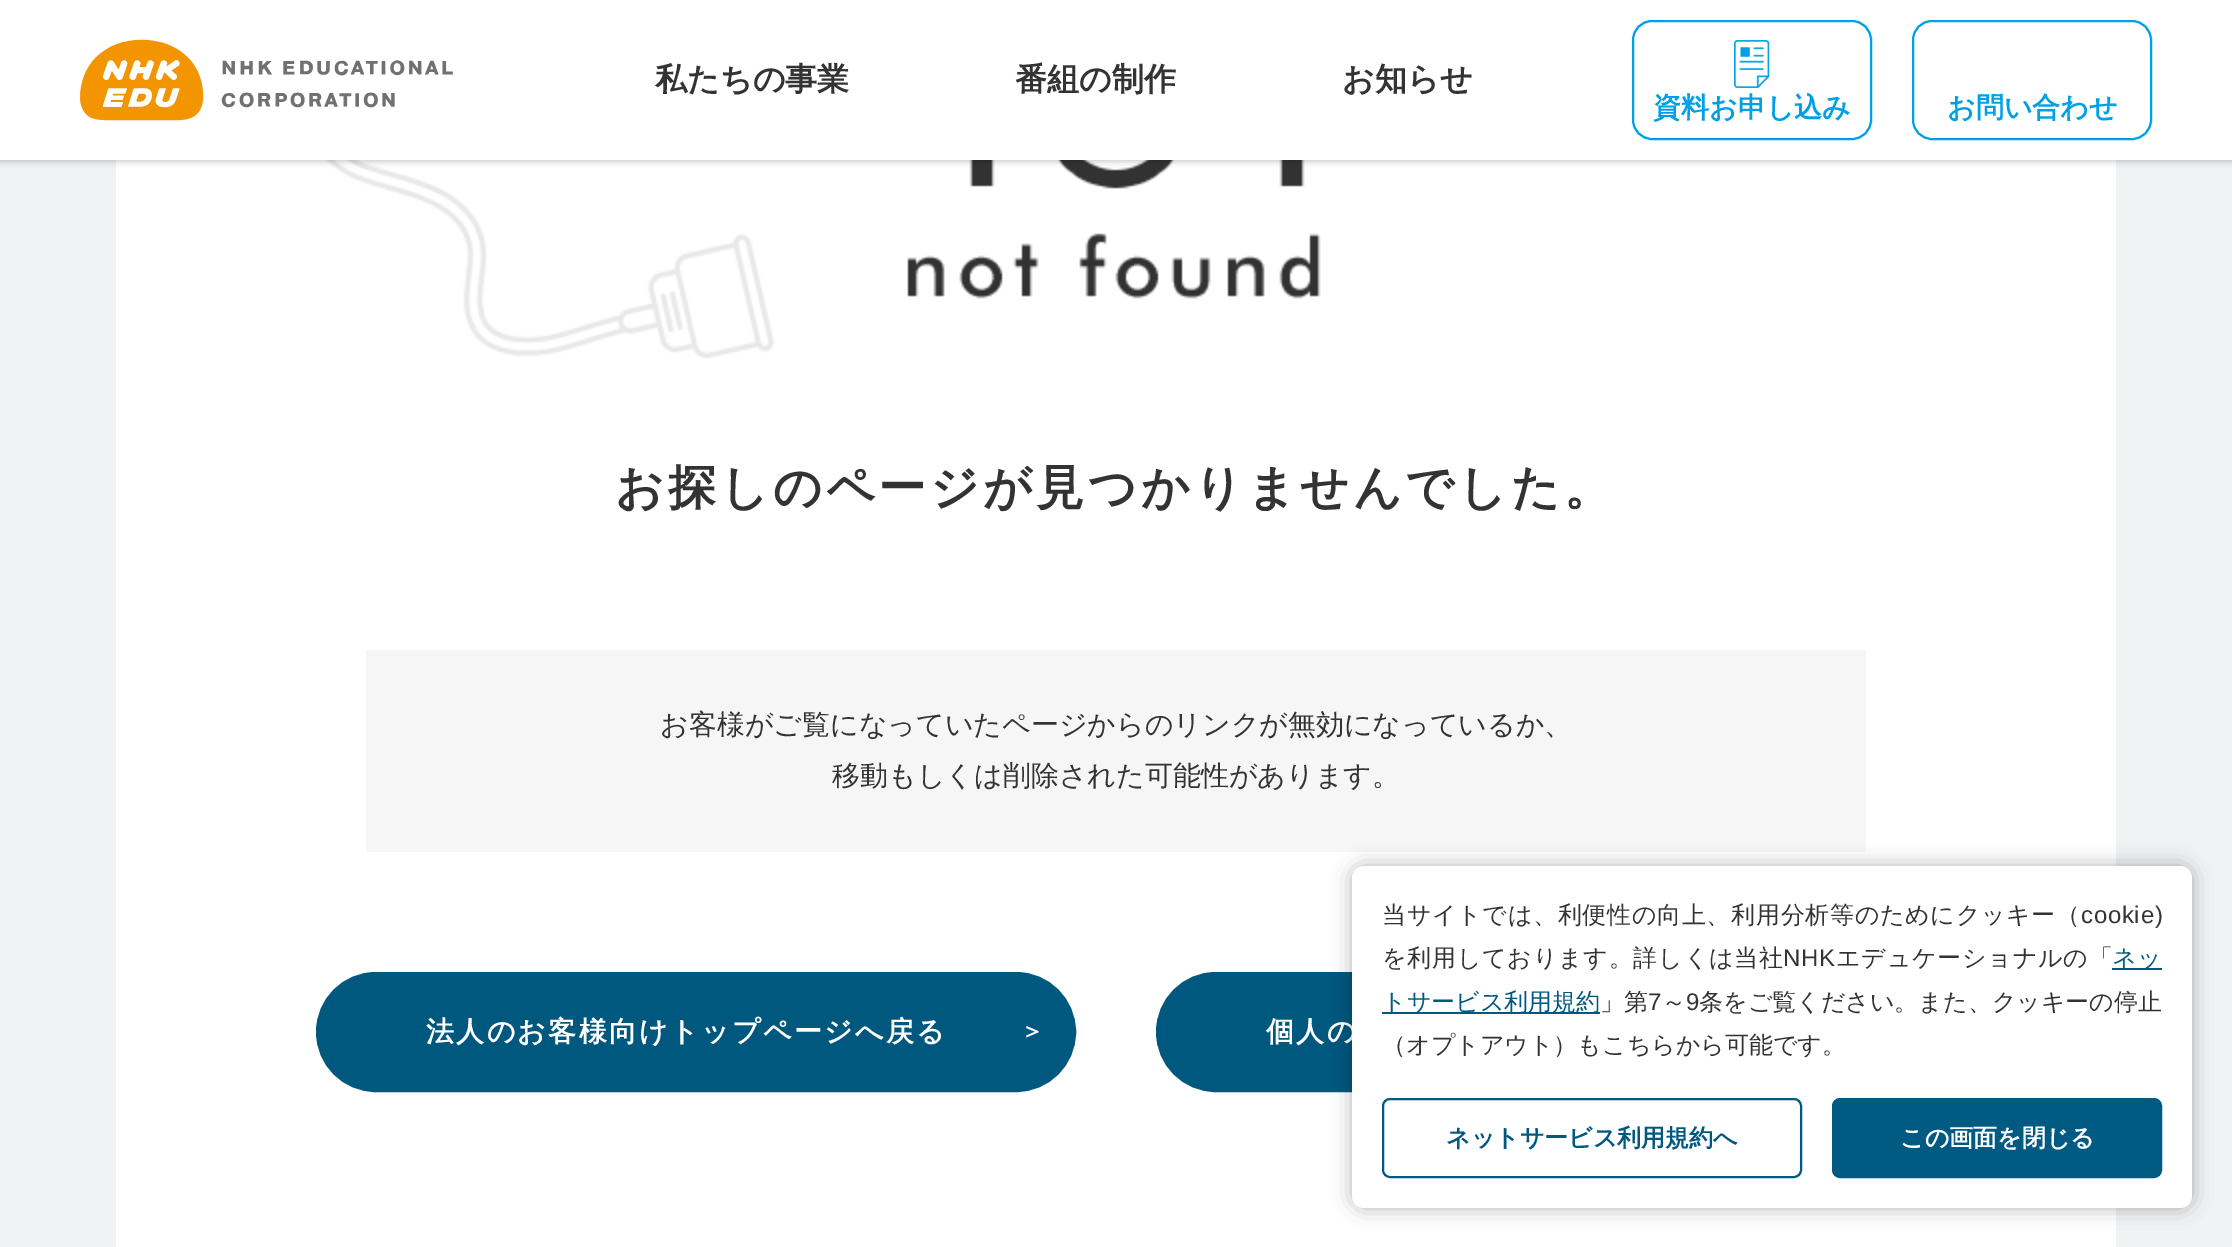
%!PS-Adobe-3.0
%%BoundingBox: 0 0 2232 1247
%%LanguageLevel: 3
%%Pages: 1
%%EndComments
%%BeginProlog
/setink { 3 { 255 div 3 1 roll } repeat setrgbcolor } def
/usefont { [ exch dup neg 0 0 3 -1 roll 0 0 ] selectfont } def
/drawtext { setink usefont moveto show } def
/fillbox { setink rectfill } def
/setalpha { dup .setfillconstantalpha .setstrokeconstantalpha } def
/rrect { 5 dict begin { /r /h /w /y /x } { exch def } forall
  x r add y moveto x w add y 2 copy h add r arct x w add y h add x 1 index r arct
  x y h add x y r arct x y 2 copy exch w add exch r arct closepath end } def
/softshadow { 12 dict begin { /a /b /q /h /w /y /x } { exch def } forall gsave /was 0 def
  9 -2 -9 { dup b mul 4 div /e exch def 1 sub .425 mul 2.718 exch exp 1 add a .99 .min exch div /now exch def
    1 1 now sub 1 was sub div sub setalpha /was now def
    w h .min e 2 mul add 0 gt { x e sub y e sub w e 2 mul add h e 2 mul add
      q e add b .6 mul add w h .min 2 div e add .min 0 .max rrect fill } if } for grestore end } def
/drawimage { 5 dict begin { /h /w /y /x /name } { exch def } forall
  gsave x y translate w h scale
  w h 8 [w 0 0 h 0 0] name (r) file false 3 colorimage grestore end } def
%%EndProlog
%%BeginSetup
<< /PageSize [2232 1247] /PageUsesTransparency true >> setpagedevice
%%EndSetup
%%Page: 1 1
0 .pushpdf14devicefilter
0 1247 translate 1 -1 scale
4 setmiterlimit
0 0 2232 1247 241 242 243 fillbox
116 160 2000 1087 255 255 255 fillbox
(assets/img3.rgb) 116 160 1886 199 drawimage
0 0 0 setink
0 -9 2232 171 0 3 0.2 softshadow
0 0 2232 160 255 255 255 fillbox
(assets/img1.rgb) 80 39 373 82 drawimage
(私たちの事業) 655 90 /WenQuanYiZenHei-Bold 32 51 51 51 drawtext
(番組の制作) 1015 90 /WenQuanYiZenHei-Bold 32 51 51 51 drawtext
(お知らせ) 1342 90 /WenQuanYiZenHei-Bold 32 51 51 51 drawtext
0 160 230 setink
2 setlinewidth
1633 21 238 118 19 rrect stroke
(assets/img2.rgb) 1734 40 36 48 drawimage
(資料お申し込み) 1653 117 /WenQuanYiZenHei-Bold 28 0 160 230 drawtext
1913 21 238 118 19 rrect stroke
(お問い合わせ) 1947 117 /WenQuanYiZenHei-Bold 28 0 160 230 drawtext
/WenQuanYiZenHei-Bold 48 usefont
51 51 51 setink
615 504 moveto 3.8 0 (お探しのページが見つかりませんでした。) ashow
366 650 1500 202 246 246 246 fillbox
(お客様がご覧になっていたページからのリンクが無効になっているか、) 660 734 /WenQuanYiZenHei-Medium 28 51 51 51 drawtext
(移動もしくは削除された可能性があります。) 832 785 /WenQuanYiZenHei-Medium 28 51 51 51 drawtext
0 88 126 setink
317 973 758 118 59 rrect gsave fill grestore
stroke
/WenQuanYiZenHei-Bold 28 usefont
255 255 255 setink
426 1041 moveto 2.25 0 (法人のお客様向けトップページへ戻る) ashow
/WenQuanYiZenHei-Bold 24 usefont
1020 1039 moveto 2.25 0 (＞) ashow
0 88 126 setink
1157 973 758 118 59 rrect gsave fill grestore
stroke
/WenQuanYiZenHei-Bold 28 usefont
255 255 255 setink
1266 1041 moveto 2.25 0 (個人の) ashow
0 0 0 setink
1352 866 840 342 12 10 0.3 softshadow
255 255 255 setink
1352 866 840 342 12 rrect fill
/WenQuanYiZenHei-Medium 24 usefont
51 51 51 setink
1382 923 moveto 0.7 0 (当サイトでは、利便性の向上、利用分析等のためにクッキー（) ashow
/LiberationSans-Regular 24 usefont
2081 923 moveto 0.7 0 (cookie\)) ashow
/WenQuanYiZenHei-Medium 24 usefont
1382 966 moveto 0.75 0 (を利用しております。詳しくは当社) ashow
/LiberationSans-Regular 24 usefont
1783 966 moveto 0.75 0 (NHK) ashow
/WenQuanYiZenHei-Medium 24 usefont
1836 966 moveto 0.75 0 (エデュケーショナルの「) ashow
2112 968 50 2 0 88 126 fillbox
(ネッ) 2112 966 /WenQuanYiZenHei-Medium 24 0 88 126 drawtext
1382 1012 218 2 0 88 126 fillbox
(トサービス利用規約) 1382 1010 /WenQuanYiZenHei-Medium 24 0 88 126 drawtext
(」第) 1600 1010 /WenQuanYiZenHei-Medium 24 51 51 51 drawtext
(7) 1648 1010 /LiberationSans-Regular 24 51 51 51 drawtext
(～) 1662 1010 /WenQuanYiZenHei-Medium 24 51 51 51 drawtext
(9) 1686 1010 /LiberationSans-Regular 24 51 51 51 drawtext
(条をご覧ください。また、クッキーの停止) 1699 1010 /WenQuanYiZenHei-Medium 24 51 51 51 drawtext
(（オプトアウト）もこちらから可能です。) 1382 1053 /WenQuanYiZenHei-Medium 24 51 51 51 drawtext
0 90 130 setink
1383 1099 418 78 7 rrect stroke
(ネットサービス利用規約へ) 1446 1146 /WenQuanYiZenHei-Bold 24 0 88 126 drawtext
0 90 130 setink
1833 1099 328 78 7 rrect gsave fill grestore
stroke
(この画面を閉じる) 1900 1146 /WenQuanYiZenHei-Bold 24 255 255 255 drawtext
.poppdf14devicefilter showpage
%%EOF
